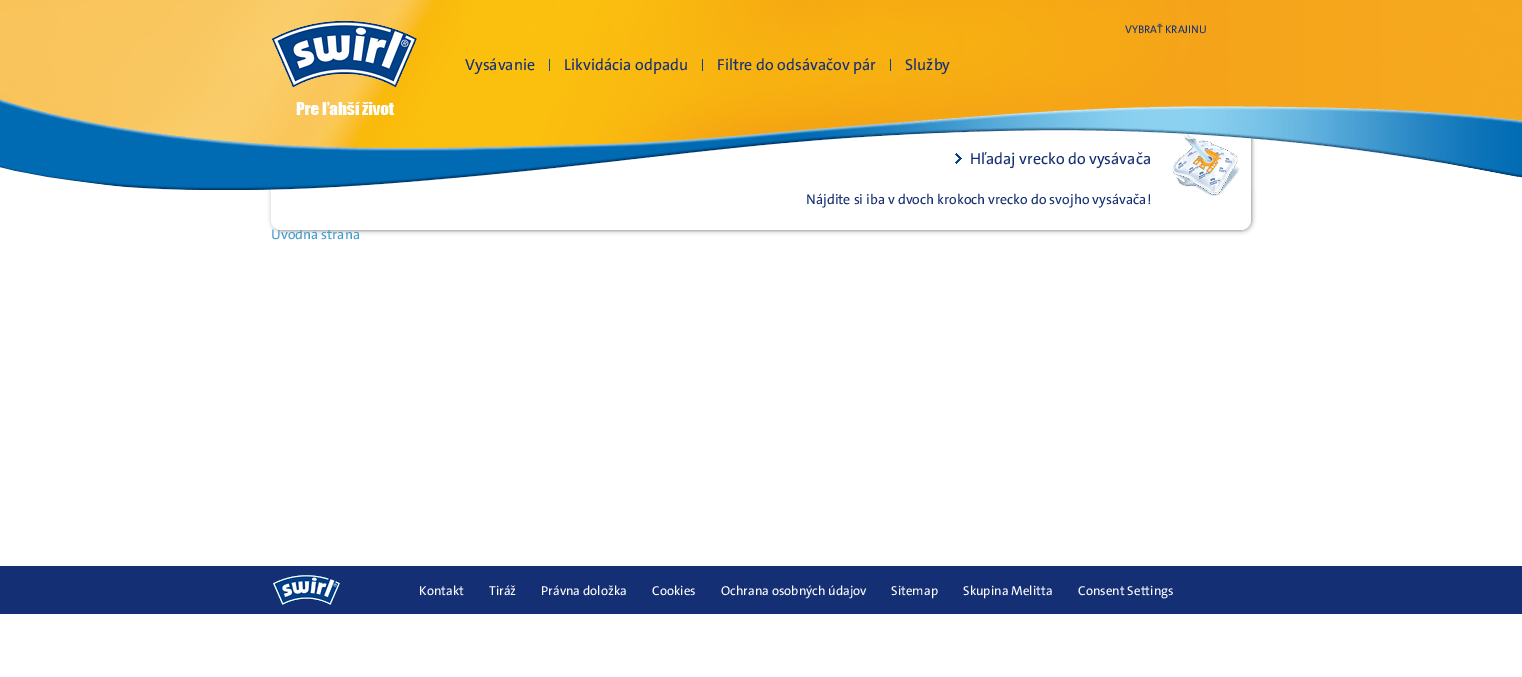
%!PS-Adobe-3.0
%%BoundingBox: 0 0 1522 677
%%LanguageLevel: 3
%%Pages: 1
%%EndComments
%%BeginProlog
/setink { 3 { 255 div 3 1 roll } repeat setrgbcolor } def
/usefont { [ exch dup neg 0 0 3 -1 roll 0 0 ] selectfont } def
/drawtext { setink usefont moveto show } def
/fillbox { setink rectfill } def
/setalpha { dup .setfillconstantalpha .setstrokeconstantalpha } def
/rrect { 5 dict begin { /r /h /w /y /x } { exch def } forall
  x r add y moveto x w add y 2 copy h add r arct x w add y h add x 1 index r arct
  x y h add x y r arct x y 2 copy exch w add exch r arct closepath end } def
/softshadow { 12 dict begin { /a /b /q /h /w /y /x } { exch def } forall gsave /was 0 def
  9 -2 -9 { dup b mul 4 div /e exch def 1 sub .425 mul 2.718 exch exp 1 add a .99 .min exch div /now exch def
    1 1 now sub 1 was sub div sub setalpha /was now def
    w h .min e 2 mul add 0 gt { x e sub y e sub w e 2 mul add h e 2 mul add
      q e add b .6 mul add w h .min 2 div e add .min 0 .max rrect fill } if } for grestore end } def
/drawimage { 5 dict begin { /h /w /y /x /name } { exch def } forall
  gsave x y translate w h scale
  w h 8 [w 0 0 h 0 0] name (r) file false 3 colorimage grestore end } def
%%EndProlog
%%BeginSetup
<< /PageSize [1522 677] /PageUsesTransparency true >> setpagedevice
%%EndSetup
%%Page: 1 1
0 .pushpdf14devicefilter
0 677 translate 1 -1 scale
4 setmiterlimit
0 0 1522 677 255 255 255 fillbox
102 102 102 setink
273 112 978 118 9 2.5 1 softshadow
(Úvodná strana) 271 239 /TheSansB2-Regular 14 68 156 205 drawtext
255 255 255 setink
271 110 moveto 1251 110 lineto 1251 220 lineto 1251 225.5 1246.5 230 1241 230 curveto 281 230 lineto 275.5 230 271 225.5 271 220 curveto closepath fill
(assets/img5.rgb) 1172 133 68 63 drawimage
(assets/img1.rgb) 0 0 1522 190 drawimage
549 59 1 12 15 72 129 fillbox
(Vysávanie) 465 70 /TheSansB2-Regular 16 21 47 116 drawtext
702 59 1 12 0 65 136 fillbox
(Likvidácia odpadu) 564 70 /TheSansB2-Regular 16 21 47 116 drawtext
890 59 1 12 0 65 136 fillbox
(Filtre do odsávačov pár) 717 70 /TheSansB2-Regular 16 21 47 116 drawtext
(Služby) 905 70 /TheSansB2-Regular 16 21 47 116 drawtext
(assets/img2.rgb) 272 21 145 67 drawimage
(assets/img3.rgb) 296 102 98 13 drawimage
(VYBRAŤ KRAJINU) 1125 33 /TheSansB2-Regular 11 21 47 116 drawtext
(assets/img4.rgb) 955 153 7 11 drawimage
(Hľadaj vrecko do vysávača) 970 164 /TheSansB2-Regular 16 21 47 116 drawtext
(Nájdite si iba v dvoch krokoch vrecko do svojho vysávača!) 806 204 /TheSansB2-Regular 14 21 47 116 drawtext
0 566 1522 48 21 47 116 fillbox
(assets/img6.rgb) 272 574 68 32 drawimage
(Kontakt) 419 595 /TheSansB2-Regular 13 255 255 255 drawtext
(Tiráž) 489 595 /TheSansB2-Regular 13 255 255 255 drawtext
(Právna doložka) 541 595 /TheSansB2-Regular 13 255 255 255 drawtext
(Cookies) 652 595 /TheSansB2-Regular 13 255 255 255 drawtext
(Ochrana osobných údajov) 721 595 /TheSansB2-Regular 13 255 255 255 drawtext
(Sitemap) 891 595 /TheSansB2-Regular 13 255 255 255 drawtext
(Skupina Melitta) 963 595 /TheSansB2-Regular 13 255 255 255 drawtext
(Consent Settings) 1078 595 /TheSansB2-Regular 13 255 255 255 drawtext
.poppdf14devicefilter showpage
%%EOF
